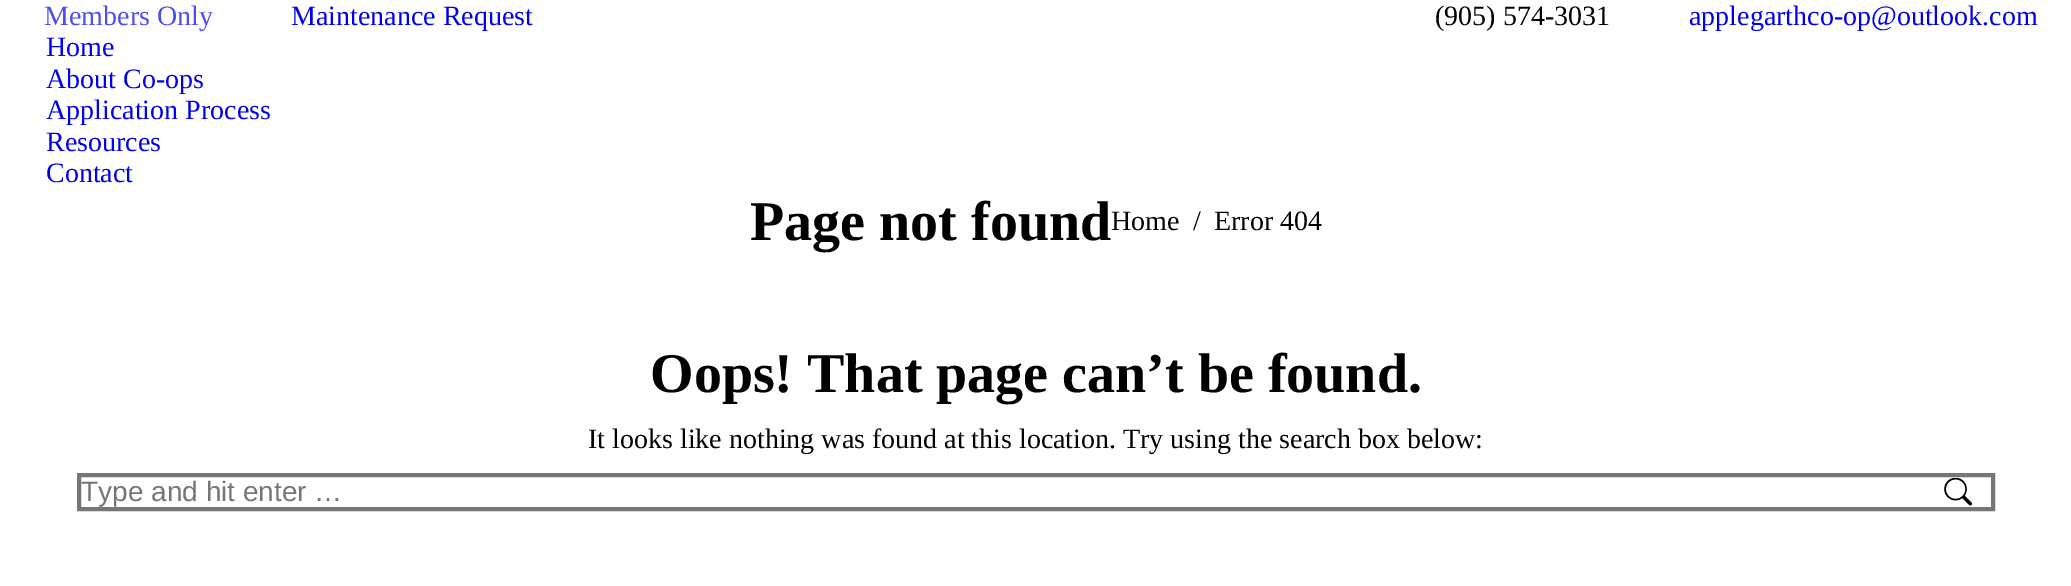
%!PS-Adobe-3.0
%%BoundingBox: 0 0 2071 586
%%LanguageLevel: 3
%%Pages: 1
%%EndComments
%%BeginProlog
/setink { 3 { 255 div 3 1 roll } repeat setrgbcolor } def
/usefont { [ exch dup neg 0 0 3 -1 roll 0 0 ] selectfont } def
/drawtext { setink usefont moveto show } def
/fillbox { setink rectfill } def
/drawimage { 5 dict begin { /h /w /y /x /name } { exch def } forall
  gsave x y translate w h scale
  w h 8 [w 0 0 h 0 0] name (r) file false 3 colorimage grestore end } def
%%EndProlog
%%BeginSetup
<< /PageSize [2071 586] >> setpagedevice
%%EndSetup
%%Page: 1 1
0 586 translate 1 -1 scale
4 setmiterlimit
0 0 2071 586 255 255 255 fillbox
(Members Only) 44 25 /LiberationSerif-Regular 28 77 77 243 drawtext
(Maintenance Request) 291 25 /LiberationSerif-Regular 28 0 0 238 drawtext
(\(905\) 574-3031) 1435 25 /LiberationSerif-Regular 28 0 0 0 drawtext
(applegarthco-op@outlook.com) 1689 25 /LiberationSerif-Regular 28 0 0 238 drawtext
(Home) 46 56 /LiberationSerif-Regular 28 0 0 238 drawtext
(About Co-ops) 46 88 /LiberationSerif-Regular 28 0 0 238 drawtext
(Application Process) 46 119 /LiberationSerif-Regular 28 0 0 238 drawtext
(Resources) 46 151 /LiberationSerif-Regular 28 0 0 238 drawtext
(Contact) 46 182 /LiberationSerif-Regular 28 0 0 238 drawtext
(Page not found) 750 240 /LiberationSerif-Bold 56 0 0 0 drawtext
(Home) 1111 230 /LiberationSerif-Regular 28 0 0 0 drawtext
(/) 1193 230 /LiberationSerif-Regular 28 0 0 0 drawtext
(Error 404) 1214 230 /LiberationSerif-Regular 28 0 0 0 drawtext
(Oops! That page can’t be found.) 650 392 /LiberationSerif-Bold 56 0 0 0 drawtext
(It looks like nothing was found at this location. Try using the search box below:) 588 448 /LiberationSerif-Regular 28 0 0 0 drawtext
118 118 118 setink
4 setlinewidth
79 475 1914 34 rectstroke
(Type and hit enter …) 81 501 /LiberationSans-Regular 28 117 117 117 drawtext
(assets/img1.rgb) 1944 478 28 28 drawimage
showpage
%%EOF
